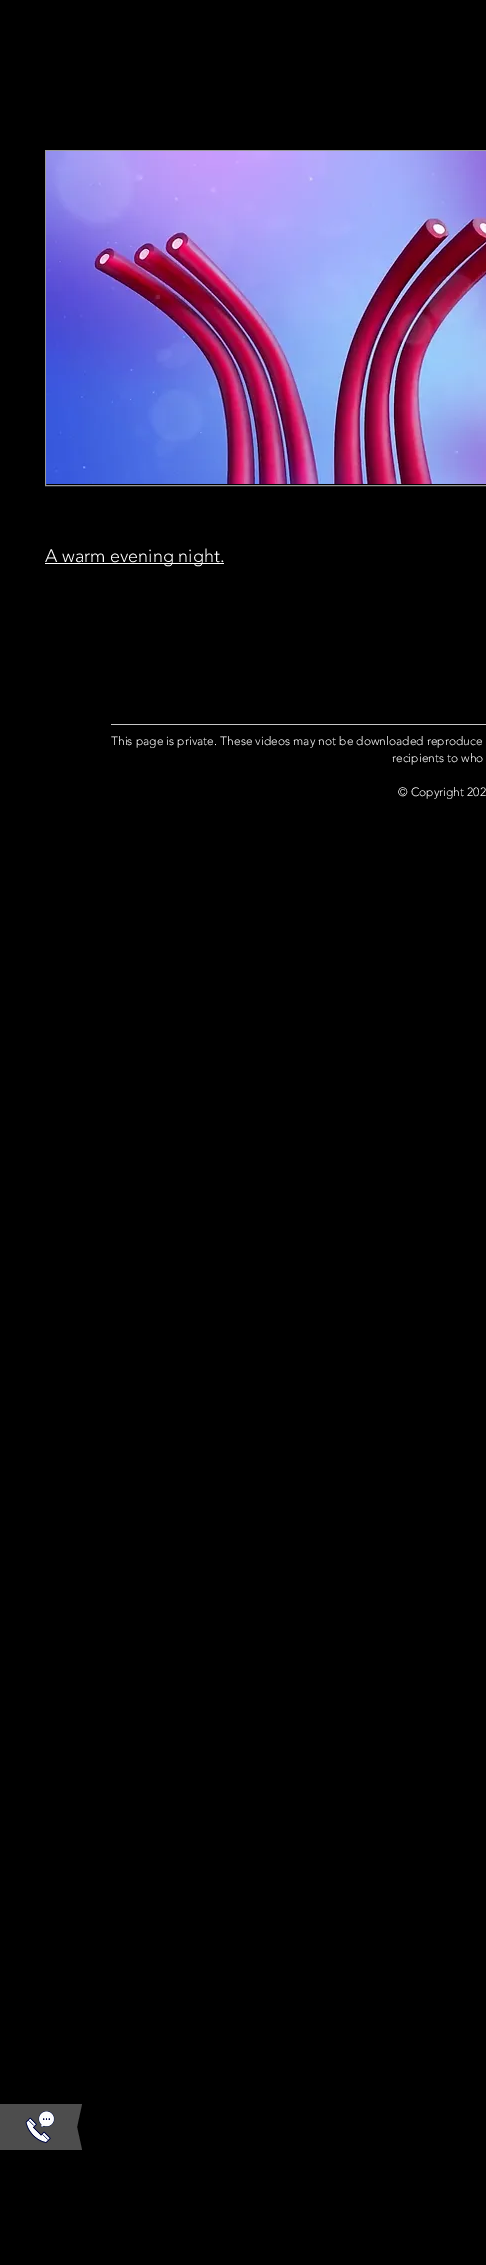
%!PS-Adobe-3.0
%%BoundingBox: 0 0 486 2265
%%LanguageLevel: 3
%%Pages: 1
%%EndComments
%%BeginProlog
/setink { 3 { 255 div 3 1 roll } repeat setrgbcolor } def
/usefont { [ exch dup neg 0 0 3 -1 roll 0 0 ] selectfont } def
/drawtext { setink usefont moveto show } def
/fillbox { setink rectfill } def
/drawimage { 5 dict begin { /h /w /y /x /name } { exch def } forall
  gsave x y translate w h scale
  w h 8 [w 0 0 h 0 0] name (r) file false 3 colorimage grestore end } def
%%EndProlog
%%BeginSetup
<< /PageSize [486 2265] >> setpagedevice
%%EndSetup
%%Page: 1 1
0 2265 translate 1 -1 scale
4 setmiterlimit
0 0 486 2265 0 0 0 fillbox
153 153 151 setink
45.5 150.5 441 335 rectstroke
(assets/img1.rgb) 46 151 440 333 drawimage
45 563 179 1 255 255 255 fillbox
(A warm evening night.) 45 562 /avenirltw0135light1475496-Light 18 255 255 255 drawtext
111 724 375 1 199 199 199 fillbox
(This page is private. These videos may not be downloaded reproduce) 111 745 /avenirltw0135light1475496-Light 12 255 255 255 drawtext
(recipients to who) 392 762 /avenirltw0135light1475496-Light 12 255 255 255 drawtext
(© Copyright 202) 398 796 /avenirltw0135light1475496-Light 12 255 255 255 drawtext
77 77 77 setink
82 2104 moveto 0 2104 lineto 0 2150 lineto 82 2150 lineto 77 2127 lineto closepath fill
(assets/img2.rgb) 25 2111 30 32 drawimage
showpage
%%EOF
